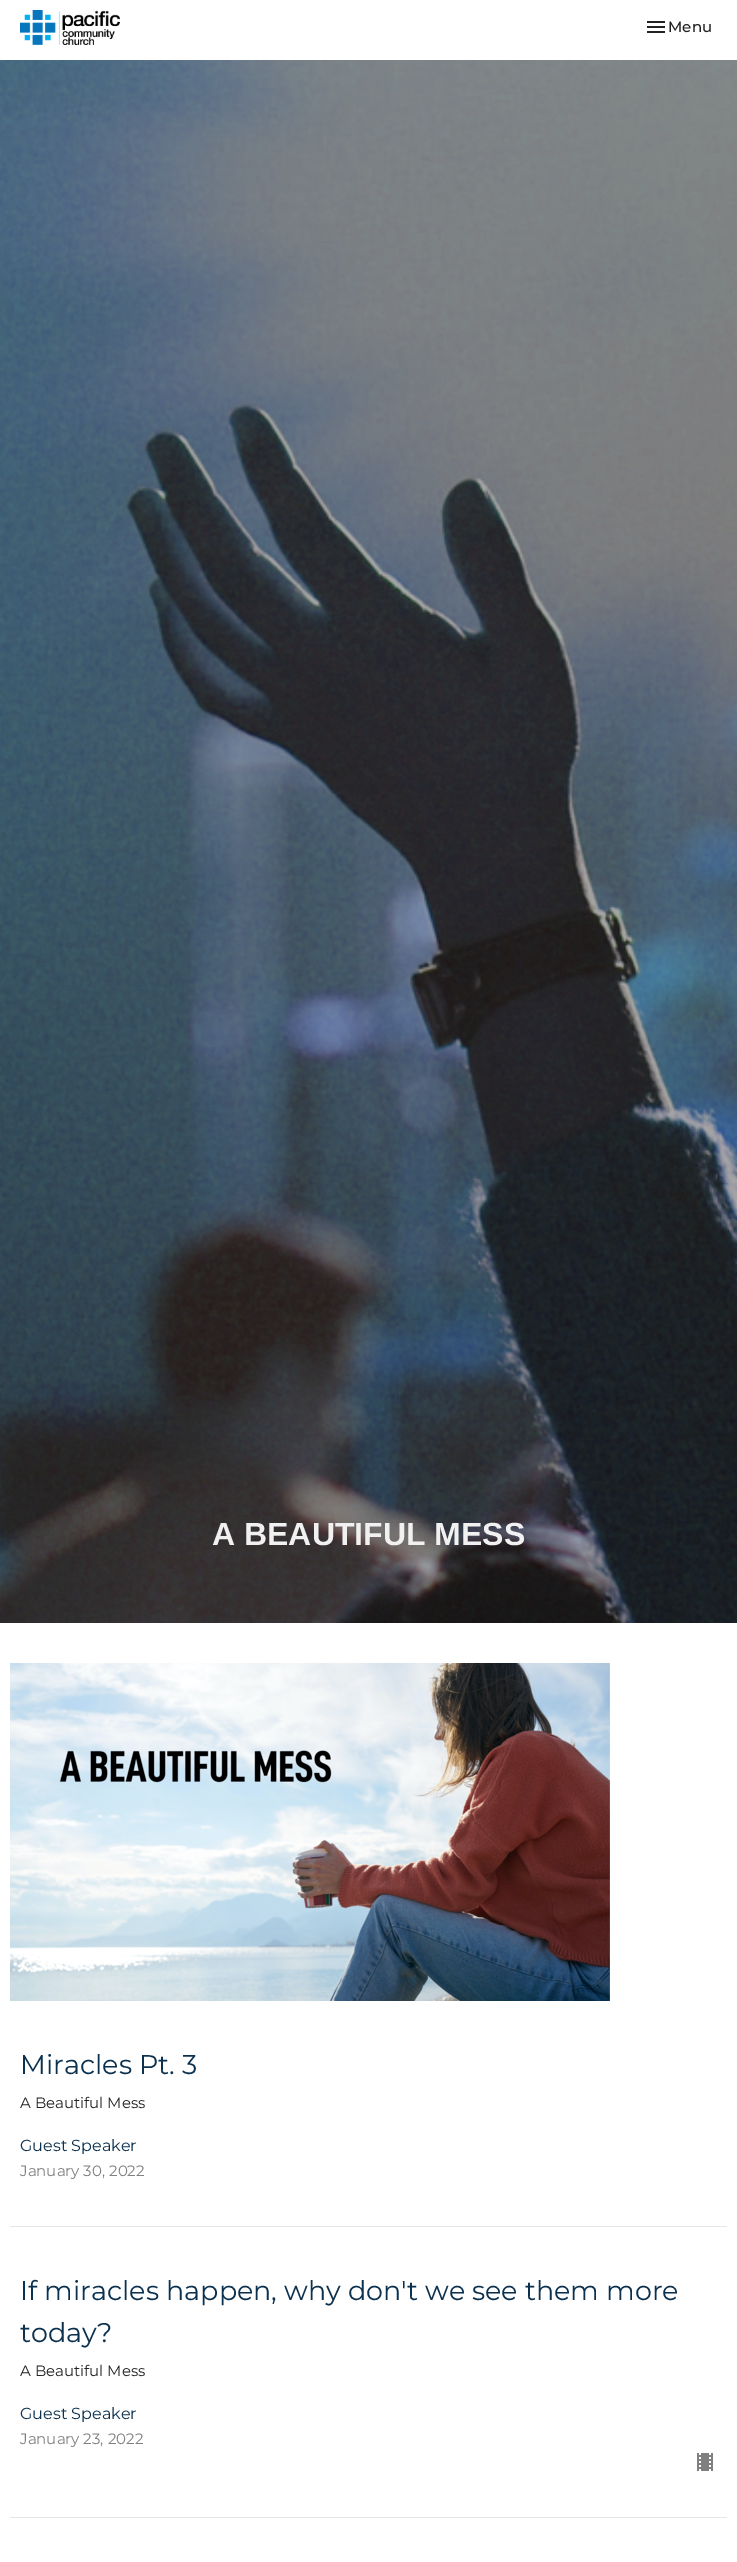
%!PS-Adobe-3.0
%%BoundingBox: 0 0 737 2562
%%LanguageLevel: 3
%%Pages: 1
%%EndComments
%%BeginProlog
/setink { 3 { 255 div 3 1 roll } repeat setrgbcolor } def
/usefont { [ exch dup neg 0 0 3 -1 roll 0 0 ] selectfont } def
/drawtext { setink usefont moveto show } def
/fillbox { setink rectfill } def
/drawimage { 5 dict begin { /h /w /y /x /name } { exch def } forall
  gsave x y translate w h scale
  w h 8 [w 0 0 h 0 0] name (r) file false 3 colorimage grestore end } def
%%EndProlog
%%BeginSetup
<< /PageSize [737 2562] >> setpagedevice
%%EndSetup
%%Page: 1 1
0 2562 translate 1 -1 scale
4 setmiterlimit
0 0 737 2562 255 255 255 fillbox
(assets/img1.rgb) 20 10 100 35 drawimage
(assets/img2.rgb) 647 21 18 12 drawimage
(Menu) 668 32 /Montserrat-Medium 15 34 34 34 drawtext
(assets/img3.rgb) 0 60 737 1563 drawimage
(A BEAUTIFUL MESS) 212 1545 /LiberationSans-Bold 32 241 241 241 drawtext
(assets/img4.rgb) 10 1663 600 338 drawimage
10 2226 717 1 230 230 230 fillbox
(Miracles Pt. 3) 20 2074 /Montserrat-Regular 27 11 49 79 drawtext
(A Beautiful Mess) 20 2108 /Montserrat-Regular 15 34 34 34 drawtext
(Guest Speaker) 20 2151 /Montserrat-Regular 16 11 49 79 drawtext
(January 30, 2022) 20 2176 /Montserrat-Regular 15 128 128 128 drawtext
10 2517 717 1 230 230 230 fillbox
(If miracles happen, why don't we see them more) 20 2300 /Montserrat-Regular 27 11 49 79 drawtext
(today?) 20 2342 /Montserrat-Regular 27 11 49 79 drawtext
(A Beautiful Mess) 20 2376 /Montserrat-Regular 15 34 34 34 drawtext
(Guest Speaker) 20 2419 /Montserrat-Regular 16 11 49 79 drawtext
(January 23, 2022) 20 2444 /Montserrat-Regular 15 128 128 128 drawtext
(assets/img5.rgb) 697 2453 16 18 drawimage
showpage
%%EOF
